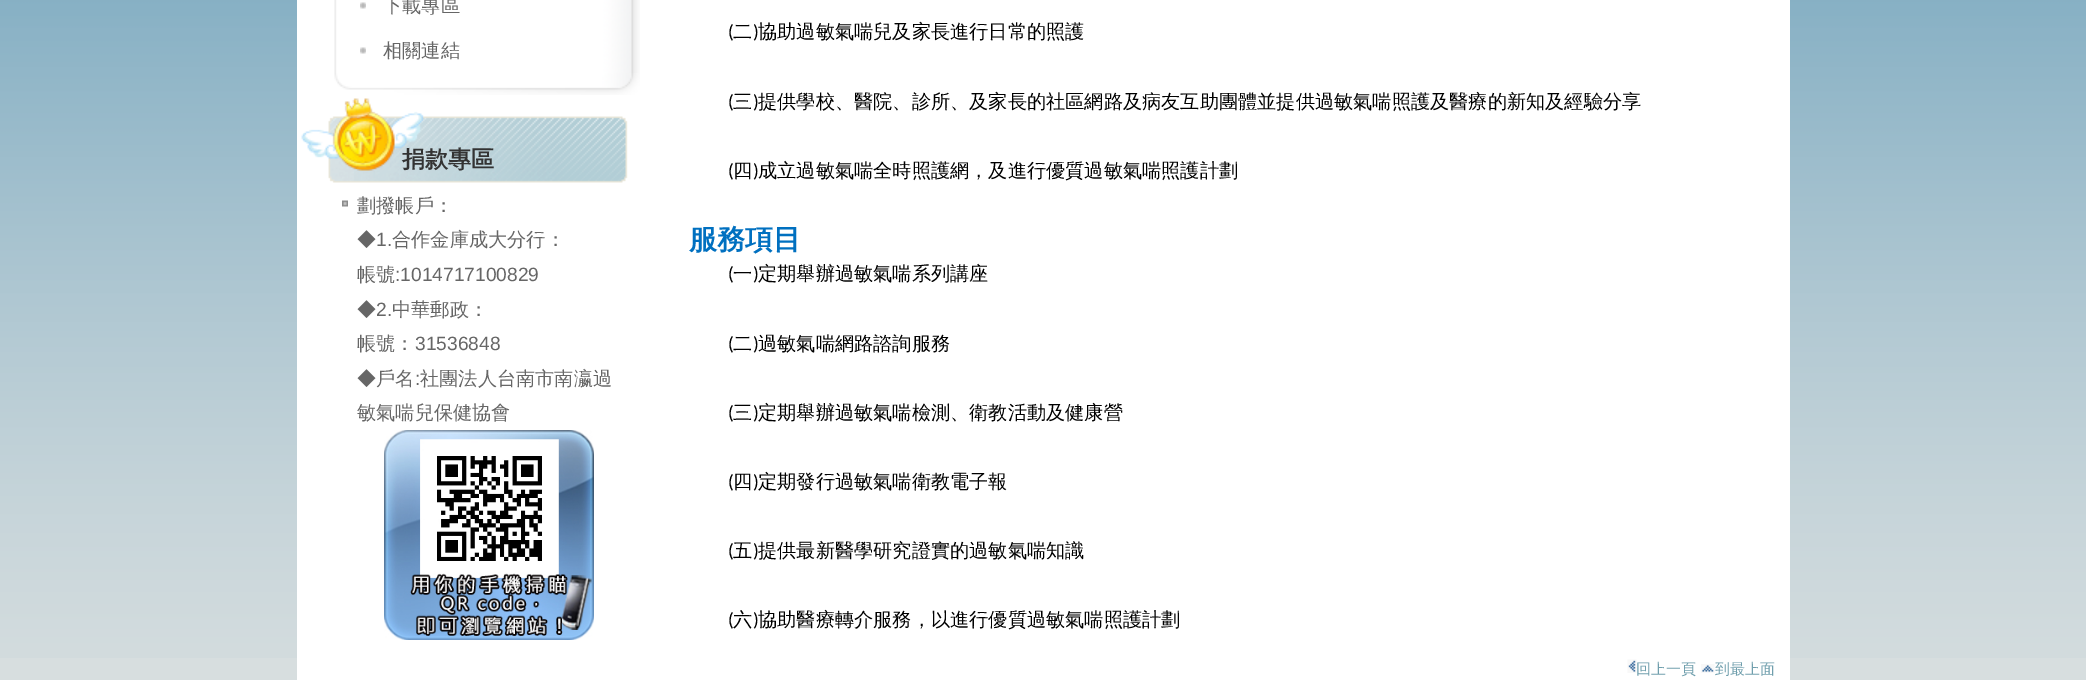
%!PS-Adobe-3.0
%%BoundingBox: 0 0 2086 680
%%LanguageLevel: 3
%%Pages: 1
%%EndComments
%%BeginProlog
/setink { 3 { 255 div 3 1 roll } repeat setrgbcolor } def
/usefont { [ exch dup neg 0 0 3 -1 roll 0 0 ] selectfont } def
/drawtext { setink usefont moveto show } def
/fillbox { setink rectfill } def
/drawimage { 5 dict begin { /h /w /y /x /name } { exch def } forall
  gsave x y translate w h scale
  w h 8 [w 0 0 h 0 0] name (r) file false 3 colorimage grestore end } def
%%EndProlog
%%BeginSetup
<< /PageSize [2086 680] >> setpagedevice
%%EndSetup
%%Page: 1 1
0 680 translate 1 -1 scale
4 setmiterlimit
0 0 2086 680 215 222 223 fillbox
(assets/img1.rgb) 0 0 2086 658 drawimage
297 0 1493 680 255 255 255 fillbox
(assets/img2.rgb) 334 73 306 22 drawimage
(assets/img3.rgb) 334 0 306 28 drawimage
(assets/img4.rgb) 360 2 6 7 drawimage
(下載專區) 383 12 /WenQuanYiZenHei-Medium 19.2 102 102 102 drawtext
(assets/img5.rgb) 334 28 306 45 drawimage
(assets/img4.rgb) 360 47 6 7 drawimage
(相關連結) 383 57 /WenQuanYiZenHei-Medium 19.2 102 102 102 drawtext
(assets/img6.rgb) 301 98 327 85 drawimage
(捐款專區) 402 167 /WenQuanYiZenHei-Bold 23 51 51 51 drawtext
(assets/img7.rgb) 342 200 6 7 drawimage
(劃撥帳戶：) 357 212 /WenQuanYiZenHei-Medium 19.2 102 102 102 drawtext
(◆) 357 246 /WenQuanYiZenHei-Medium 19.2 102 102 102 drawtext
(1.) 376 246 /LiberationSans-Regular 19.2 102 102 102 drawtext
(合作金庫成大分行：) 392 246 /WenQuanYiZenHei-Medium 19.2 102 102 102 drawtext
(帳號) 357 281 /WenQuanYiZenHei-Medium 19.2 102 102 102 drawtext
(:1014717100829) 395 281 /LiberationSans-Regular 19.2 102 102 102 drawtext
(◆) 357 316 /WenQuanYiZenHei-Medium 19.2 102 102 102 drawtext
(2.) 376 316 /LiberationSans-Regular 19.2 102 102 102 drawtext
(中華郵政：) 392 316 /WenQuanYiZenHei-Medium 19.2 102 102 102 drawtext
(帳號：) 357 350 /WenQuanYiZenHei-Medium 19.2 102 102 102 drawtext
(31536848) 415 350 /LiberationSans-Regular 19.2 102 102 102 drawtext
(◆戶名) 357 385 /WenQuanYiZenHei-Medium 19.2 102 102 102 drawtext
(:) 415 385 /LiberationSans-Regular 19.2 102 102 102 drawtext
(社團法人台南市南瀛過) 420 385 /WenQuanYiZenHei-Medium 19.2 102 102 102 drawtext
(敏氣喘兒保健協會) 357 419 /WenQuanYiZenHei-Medium 19.2 102 102 102 drawtext
(assets/img8.rgb) 384 430 210 210 drawimage
(\() 728 38 /Carlito-Regular 19.2 0 0 0 drawtext
(二 協助過敏氣喘兒及家長進行日常的照護) 733 38 /WenQuanYiZenHei-Medium 19.2 0 0 0 drawtext
(\)) 753 38 /Carlito-Regular 19.2 0 0 0 drawtext
(\() 728 108 /Carlito-Regular 19.2 0 0 0 drawtext
(三 提供學校、醫院、診所、及家長的社區網路及病友互助團體並提供過敏氣喘照護及醫療的新知及經驗分享) 733 108 /WenQuanYiZenHei-Medium 19.2 0 0 0 drawtext
(\)) 753 108 /Carlito-Regular 19.2 0 0 0 drawtext
(\() 728 177 /Carlito-Regular 19.2 0 0 0 drawtext
(四 成立過敏氣喘全時照護網，及進行優質過敏氣喘照護計劃) 733 177 /WenQuanYiZenHei-Medium 19.2 0 0 0 drawtext
(\)) 753 177 /Carlito-Regular 19.2 0 0 0 drawtext
(服務項目) 689 249 /WenQuanYiZenHei-Bold 28 0 112 192 drawtext
(\() 728 280 /Carlito-Regular 19.2 0 0 0 drawtext
(一 定期舉辦過敏氣喘系列講座) 733 280 /WenQuanYiZenHei-Medium 19.2 0 0 0 drawtext
(\)) 753 280 /Carlito-Regular 19.2 0 0 0 drawtext
(\() 728 350 /Carlito-Regular 19.2 0 0 0 drawtext
(二 過敏氣喘網路諮詢服務) 733 350 /WenQuanYiZenHei-Medium 19.2 0 0 0 drawtext
(\)) 753 350 /Carlito-Regular 19.2 0 0 0 drawtext
(\() 728 419 /Carlito-Regular 19.2 0 0 0 drawtext
(三 定期舉辦過敏氣喘檢測、衛教活動及健康營) 733 419 /WenQuanYiZenHei-Medium 19.2 0 0 0 drawtext
(\)) 753 419 /Carlito-Regular 19.2 0 0 0 drawtext
(\() 728 488 /Carlito-Regular 19.2 0 0 0 drawtext
(四 定期發行過敏氣喘衛教電子報) 733 488 /WenQuanYiZenHei-Medium 19.2 0 0 0 drawtext
(\)) 753 488 /Carlito-Regular 19.2 0 0 0 drawtext
(\() 728 557 /Carlito-Regular 19.2 0 0 0 drawtext
(五 提供最新醫學研究證實的過敏氣喘知識) 733 557 /WenQuanYiZenHei-Medium 19.2 0 0 0 drawtext
(\)) 753 557 /Carlito-Regular 19.2 0 0 0 drawtext
(\() 728 626 /Carlito-Regular 19.2 0 0 0 drawtext
(六 協助醫療轉介服務，以進行優質過敏氣喘照護計劃) 733 626 /WenQuanYiZenHei-Medium 19.2 0 0 0 drawtext
(\)) 753 626 /Carlito-Regular 19.2 0 0 0 drawtext
(assets/img9.rgb) 1627 659 10 14 drawimage
(回上一頁) 1636 674 /WenQuanYiZenHei-Medium 15 112 159 173 drawtext
(assets/img10.rgb) 1701 664 14 9 drawimage
(到最上面) 1715 674 /WenQuanYiZenHei-Medium 15 112 159 173 drawtext
showpage
%%EOF
